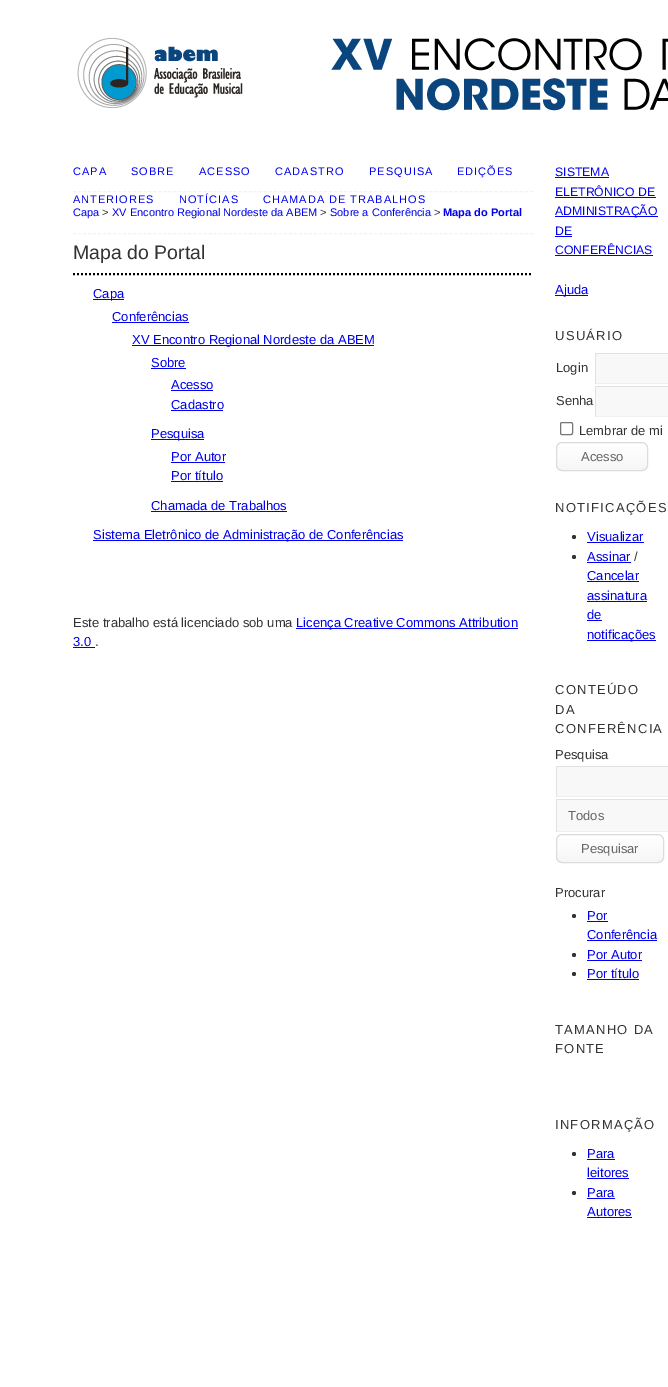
%!PS-Adobe-3.0
%%BoundingBox: 0 0 668 1387
%%LanguageLevel: 3
%%Pages: 1
%%EndComments
%%BeginProlog
/setink { 3 { 255 div 3 1 roll } repeat setrgbcolor } def
/usefont { [ exch dup neg 0 0 3 -1 roll 0 0 ] selectfont } def
/drawtext { setink usefont moveto show } def
/fillbox { setink rectfill } def
/disc { newpath 0 360 arc closepath } def
/rrect { 5 dict begin { /r /h /w /y /x } { exch def } forall
  x r add y moveto x w add y 2 copy h add r arct x w add y h add x 1 index r arct
  x y h add x y r arct x y 2 copy exch w add exch r arct closepath end } def
/drawimage { 5 dict begin { /h /w /y /x /name } { exch def } forall
  gsave x y translate w h scale
  w h 8 [w 0 0 h 0 0] name (r) file false 3 colorimage grestore end } def
%%EndProlog
%%BeginSetup
<< /PageSize [668 1387] >> setpagedevice
%%EndSetup
%%Page: 1 1
0 1387 translate 1 -1 scale
4 setmiterlimit
0 0 668 1387 255 255 255 fillbox
(assets/img1.rgb) 77 38 591 73 drawimage
242 242 242 setink
[3 2.02] 0 setdash
73 191.5 moveto 533 191.5 lineto stroke
/LiberationSans-Regular 11 usefont
0 0 238 setink
73 175 moveto 1 0 (CAPA) ashow
131 175 moveto 1 0 (SOBRE) ashow
199 175 moveto 1 0 (ACESSO) ashow
275 175 moveto 1 0 (CADASTRO) ashow
369 175 moveto 1 0 (PESQUISA) ashow
457 175 moveto 1 0 (EDIÇÕES) ashow
73 203 moveto 1 0 (ANTERIORES) ashow
179 203 moveto 1 0 (NOTÍCIAS) ashow
263 203 moveto 1 0 (CHAMADA DE TRABALHOS) ashow
242 242 242 setink
73 233.5 moveto 533 233.5 lineto stroke
(Capa) 73 216 /LiberationSans-Regular 11 0 0 238 drawtext
(>) 102 216 /LiberationSans-Regular 11 51 51 51 drawtext
(XV Encontro Regional Nordeste da ABEM) 112 216 /LiberationSans-Regular 11 0 0 238 drawtext
(>) 320 216 /LiberationSans-Regular 11 51 51 51 drawtext
(Sobre a Conferência) 330 216 /LiberationSans-Regular 11 0 0 238 drawtext
(>) 434 216 /LiberationSans-Regular 11 51 51 51 drawtext
(Mapa do Portal) 443 216 /LiberationSans-Bold 11 0 0 238 drawtext
(Mapa do Portal) 73 259 /LiberationSans-Regular 19.5 51 51 51 drawtext
0 0 0 setink
2 setlinewidth
[2 2] 0 setdash
73 274 moveto 533 274 lineto stroke
93 299 31 1 0 0 238 fillbox
(Capa) 93 298 /LiberationSans-Regular 13 0 0 238 drawtext
(Conferências) 112 321 /LiberationSans-Regular 13 0 0 238 drawtext
112 322 77 1 0 0 238 fillbox
132 345 242 1 0 0 238 fillbox
(XV Encontro Regional Nordeste da ABEM) 132 344 /LiberationSans-Regular 13 0 0 238 drawtext
(Sobre) 151 367 /LiberationSans-Regular 13 0 0 238 drawtext
151 368 35 1 0 0 238 fillbox
(Acesso) 171 389 /LiberationSans-Regular 13 0 0 238 drawtext
171 390 42 1 0 0 238 fillbox
(Cadastro) 171 409 /LiberationSans-Regular 13 0 0 238 drawtext
171 410 52 1 0 0 238 fillbox
151 439 53 1 0 0 238 fillbox
(Pesquisa) 151 438 /LiberationSans-Regular 13 0 0 238 drawtext
(Por Autor) 171 461 /LiberationSans-Regular 13 0 0 238 drawtext
171 462 54 1 0 0 238 fillbox
(Por título) 171 480 /LiberationSans-Regular 13 0 0 238 drawtext
171 481 52 1 0 0 238 fillbox
(Chamada de Trabalhos) 151 510 /LiberationSans-Regular 13 0 0 238 drawtext
151 511 136 1 0 0 238 fillbox
93 540 310 1 0 0 238 fillbox
(Sistema Eletrônico de Administração de Conferências) 93 539 /LiberationSans-Regular 13 0 0 238 drawtext
(Este trabalho está licenciado sob uma) 73 627 /LiberationSans-Regular 13 51 51 51 drawtext
296 628 222 1 0 0 238 fillbox
(Licença Creative Commons Attribution) 296 627 /LiberationSans-Regular 13 0 0 238 drawtext
(3.0) 73 646 /LiberationSans-Regular 13 0 0 238 drawtext
73 647 22 1 0 0 238 fillbox
(.) 95 646 /LiberationSans-Regular 13 51 51 51 drawtext
(SISTEMA) 555 176 /LiberationSans-Regular 12.25 0 0 238 drawtext
555 177 54 1 0 0 238 fillbox
(ELETRÔNICO DE) 555 196 /LiberationSans-Regular 12.25 0 0 238 drawtext
555 197 101 1 0 0 238 fillbox
555 216 103 1 0 0 238 fillbox
(ADMINISTRAÇÃO) 555 215 /LiberationSans-Regular 12.25 0 0 238 drawtext
(DE) 555 235 /LiberationSans-Regular 12.25 0 0 238 drawtext
555 236 17 1 0 0 238 fillbox
(CONFERÊNCIAS) 555 254 /LiberationSans-Regular 12.25 0 0 238 drawtext
555 255 98 1 0 0 238 fillbox
555 295 33 1 0 0 238 fillbox
(Ajuda) 555 294 /LiberationSans-Regular 13 0 0 238 drawtext
51 51 51 setink
555 340 moveto 1.25 0 (USUÁRIO) ashow
(Login) 556 372 /LiberationSans-Regular 13 51 51 51 drawtext
596 354 72 29 248 248 248 fillbox
595 353 73 1 225 225 225 fillbox
595 383 73 1 240 240 240 fillbox
595 353 1 31 225 225 225 fillbox
(Senha) 556 405 /LiberationSans-Regular 13 51 51 51 drawtext
596 387 72 29 248 248 248 fillbox
595 386 73 1 225 225 225 fillbox
595 416 73 1 240 240 240 fillbox
595 386 1 31 225 225 225 fillbox
118 118 118 setink
1 setlinewidth
[] 0 setdash
560.5 422.5 12 12 1.5 rrect stroke
(Lembrar de mi) 579 435 /LiberationSans-Regular 13 51 51 51 drawtext
gsave 557 443 90 27 5 rrect clip newpath
<< /ShadingType 2 /ColorSpace /DeviceRGB /Coords [557 443 557 470] /Extend [true true] /Function << /FunctionType 3 /Domain [0 1] /Functions [<< /FunctionType 2 /Domain [0 1] /C0 [1 1 1] /C1 [1 1 1] /N 1 >> << /FunctionType 2 /Domain [0 1] /C0 [1 1 1] /C1 [0.965 0.965 0.965] /N 1 >>] /Bounds [0.05] /Encode [0 1 0 1] >> >> shfill grestore
220 220 220 setink
556.5 442.5 91 28 5.5 rrect stroke
(Acesso) 581 461 /LiberationSans-Regular 13 102 102 102 drawtext
51 51 51 setink
555 512 moveto 1.25 0 (NOTIFICAÇÕES) ashow
574 537 2 disc fill
(Visualizar) 587 541 /LiberationSans-Regular 13 0 0 238 drawtext
587 542 57 1 0 0 238 fillbox
51 51 51 setink
574 557 2 disc fill
(Assinar) 587 561 /LiberationSans-Regular 13 0 0 238 drawtext
587 562 44 1 0 0 238 fillbox
(/) 634 561 /LiberationSans-Regular 13 51 51 51 drawtext
(Cancelar) 587 580 /LiberationSans-Regular 13 0 0 238 drawtext
587 581 52 1 0 0 238 fillbox
(assinatura) 587 600 /LiberationSans-Regular 13 0 0 238 drawtext
587 601 60 1 0 0 238 fillbox
(de) 587 619 /LiberationSans-Regular 13 0 0 238 drawtext
587 620 15 1 0 0 238 fillbox
587 640 69 1 0 0 238 fillbox
(notificações) 587 639 /LiberationSans-Regular 13 0 0 238 drawtext
51 51 51 setink
555 694 moveto 1.25 0 (CONTEÚDO) ashow
555 714 moveto 1.25 0 (DA) ashow
555 733 moveto 1.25 0 (CONFERÊNCIA) ashow
(Pesquisa) 555 759 /LiberationSans-Regular 13 51 51 51 drawtext
557 767 111 29 248 248 248 fillbox
556 766 112 1 225 225 225 fillbox
556 796 112 1 240 240 240 fillbox
556 766 1 31 225 225 225 fillbox
557 800 111 31 248 248 248 fillbox
556 799 112 1 225 225 225 fillbox
556 831 112 1 240 240 240 fillbox
556 799 1 33 225 225 225 fillbox
(Todos) 568 820 /LiberationSans-Regular 13 102 102 102 drawtext
gsave 557 835 106 27 5 rrect clip newpath
<< /ShadingType 2 /ColorSpace /DeviceRGB /Coords [557 835 557 862] /Extend [true true] /Function << /FunctionType 3 /Domain [0 1] /Functions [<< /FunctionType 2 /Domain [0 1] /C0 [1 1 1] /C1 [1 1 1] /N 1 >> << /FunctionType 2 /Domain [0 1] /C0 [1 1 1] /C1 [0.965 0.965 0.965] /N 1 >>] /Bounds [0.05] /Encode [0 1 0 1] >> >> shfill grestore
220 220 220 setink
556.5 834.5 107 28 5.5 rrect stroke
(Pesquisar) 581 853 /LiberationSans-Regular 13 102 102 102 drawtext
(Procurar) 555 897 /LiberationSans-Regular 13 51 51 51 drawtext
574 916 2 disc fill
(Por) 587 920 /LiberationSans-Regular 13 0 0 238 drawtext
587 921 21 1 0 0 238 fillbox
(Conferência) 587 939 /LiberationSans-Regular 13 0 0 238 drawtext
587 940 70 1 0 0 238 fillbox
51 51 51 setink
574 955 2 disc fill
(Por Autor) 587 959 /LiberationSans-Regular 13 0 0 238 drawtext
587 960 55 1 0 0 238 fillbox
51 51 51 setink
574 974 2 disc fill
(Por título) 587 978 /LiberationSans-Regular 13 0 0 238 drawtext
587 979 52 1 0 0 238 fillbox
51 51 51 setink
555 1034 moveto 1.25 0 (TAMANHO DA) ashow
555 1053 moveto 1.25 0 (FONTE) ashow
555 1129 moveto 1.25 0 (INFORMAÇÃO) ashow
574 1154 2 disc fill
(Para) 587 1158 /LiberationSans-Regular 13 0 0 238 drawtext
587 1159 28 1 0 0 238 fillbox
(leitores) 587 1177 /LiberationSans-Regular 13 0 0 238 drawtext
587 1178 42 1 0 0 238 fillbox
51 51 51 setink
574 1193 2 disc fill
(Para) 587 1197 /LiberationSans-Regular 13 0 0 238 drawtext
587 1198 28 1 0 0 238 fillbox
(Autores) 587 1216 /LiberationSans-Regular 13 0 0 238 drawtext
587 1217 45 1 0 0 238 fillbox
showpage
%%EOF
